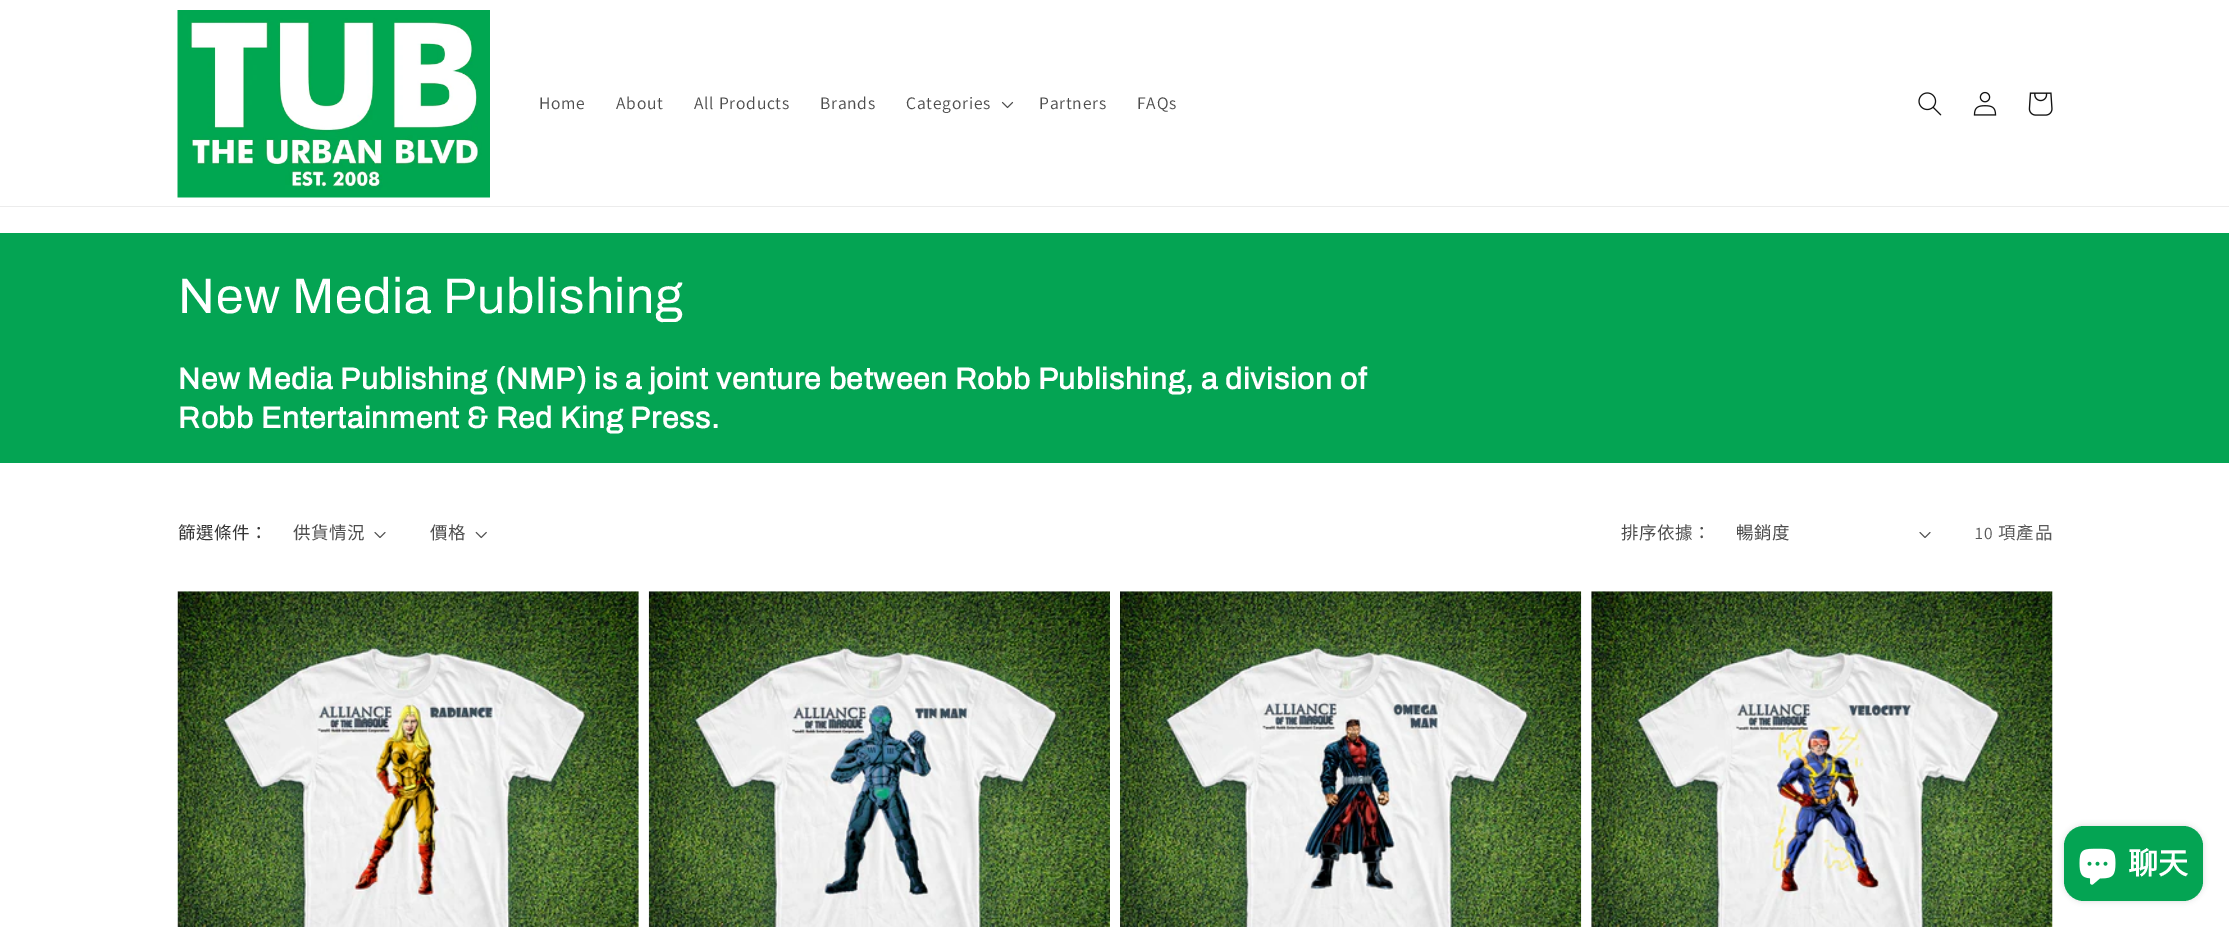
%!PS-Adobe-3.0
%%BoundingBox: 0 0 2229 927
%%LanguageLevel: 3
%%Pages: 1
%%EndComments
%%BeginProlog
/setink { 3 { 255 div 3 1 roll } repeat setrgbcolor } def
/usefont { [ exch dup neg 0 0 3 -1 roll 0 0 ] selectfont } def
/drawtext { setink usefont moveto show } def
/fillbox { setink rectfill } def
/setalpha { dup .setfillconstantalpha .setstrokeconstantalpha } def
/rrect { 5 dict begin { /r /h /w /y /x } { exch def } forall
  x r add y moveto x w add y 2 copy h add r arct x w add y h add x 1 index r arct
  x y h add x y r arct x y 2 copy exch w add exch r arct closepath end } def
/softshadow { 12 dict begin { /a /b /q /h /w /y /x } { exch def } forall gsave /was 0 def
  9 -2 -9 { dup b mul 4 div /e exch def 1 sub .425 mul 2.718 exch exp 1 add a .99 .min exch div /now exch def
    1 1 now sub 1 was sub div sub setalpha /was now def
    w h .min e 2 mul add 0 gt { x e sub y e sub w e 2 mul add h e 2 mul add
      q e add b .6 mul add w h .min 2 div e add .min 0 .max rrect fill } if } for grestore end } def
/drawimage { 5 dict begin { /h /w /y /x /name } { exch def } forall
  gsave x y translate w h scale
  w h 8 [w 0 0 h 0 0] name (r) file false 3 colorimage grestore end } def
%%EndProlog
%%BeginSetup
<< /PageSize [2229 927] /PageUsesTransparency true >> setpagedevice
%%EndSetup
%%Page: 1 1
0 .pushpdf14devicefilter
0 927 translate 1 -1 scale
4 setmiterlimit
0 0 2229 927 255 255 255 fillbox
0 206 2229 1 236 236 236 fillbox
(assets/img1.rgb) 177 10 313 188 drawimage
/Assistant-Regular 17.5 usefont
77 77 77 setink
539 109 moveto 0.75 0 (Home) ashow
616 109 moveto 0.75 0 (About) ashow
694 109 moveto 0.75 0 (All Products) ashow
820 109 moveto 0.75 0 (Brands) ashow
906 109 moveto 0.75 0 (Categories) ashow
(assets/img2.rgb) 1001 101 13 8 drawimage
1039 109 moveto 0.75 0 (Partners) ashow
1137 109 moveto 0.75 0 (FAQs) ashow
(assets/img3.rgb) 1918 92 24 24 drawimage
(assets/img4.rgb) 1973 91 24 25 drawimage
(assets/img5.rgb) 2028 92 25 24 drawimage
0 233 2229 230 4 164 83 fillbox
/Archivo-Regular 50 usefont
255 255 255 setink
178 313 moveto 0.75 0 (New Media Publishing) ashow
/Archivo-Bold 30 usefont
178 389 moveto 0.75 0 (New Media Publishing \(NMP\) is a joint venture between Robb Publishing, a division of) ashow
178 428 moveto 0.75 0 (Robb Entertainment & Red King Press.) ashow
/NotoSansCJKTC-Regular 17.5 usefont
54 54 54 setink
178 539 moveto 0.5 0 (篩選條件：) ashow
77 77 77 setink
293 539 moveto 0.5 0 (供貨情況) ashow
(assets/img6.rgb) 374 532 12 6 drawimage
430 539 moveto 0.5 0 (價格) ashow
(assets/img7.rgb) 475 531 12 8 drawimage
1621 539 moveto 0.5 0 (排序依據：) ashow
1736 539 moveto 0.5 0 (暢銷度) ashow
(assets/img6.rgb) 1919 532 12 6 drawimage
/Assistant-Regular 17.5 usefont
89 89 89 setink
1975 539 moveto 0.75 0 (10) ashow
/NotoSansCJKTC-Regular 17.5 usefont
1998 539 moveto 0.75 0 (項產品) ashow
178 591 461 336 250 250 250 fillbox
(assets/img8.rgb) 177 591 462 336 drawimage
649 591 461 1 250 250 250 fillbox
(assets/img9.rgb) 648 591 462 336 drawimage
1120 591 461 1 250 250 250 fillbox
(assets/img10.rgb) 1120 591 462 336 drawimage
1591 591 462 336 250 250 250 fillbox
(assets/img11.rgb) 1591 591 462 336 drawimage
0 0 0 setink
2064 826 139 75 20 3 0.15 softshadow
4 164 83 setink
2064 826 139 75 20 rrect fill
(assets/img12.rgb) 2079 848 37 37 drawimage
(聊天) 2128 874 /NotoSansCJKTC-Bold 30 255 255 255 drawtext
.poppdf14devicefilter showpage
%%EOF
